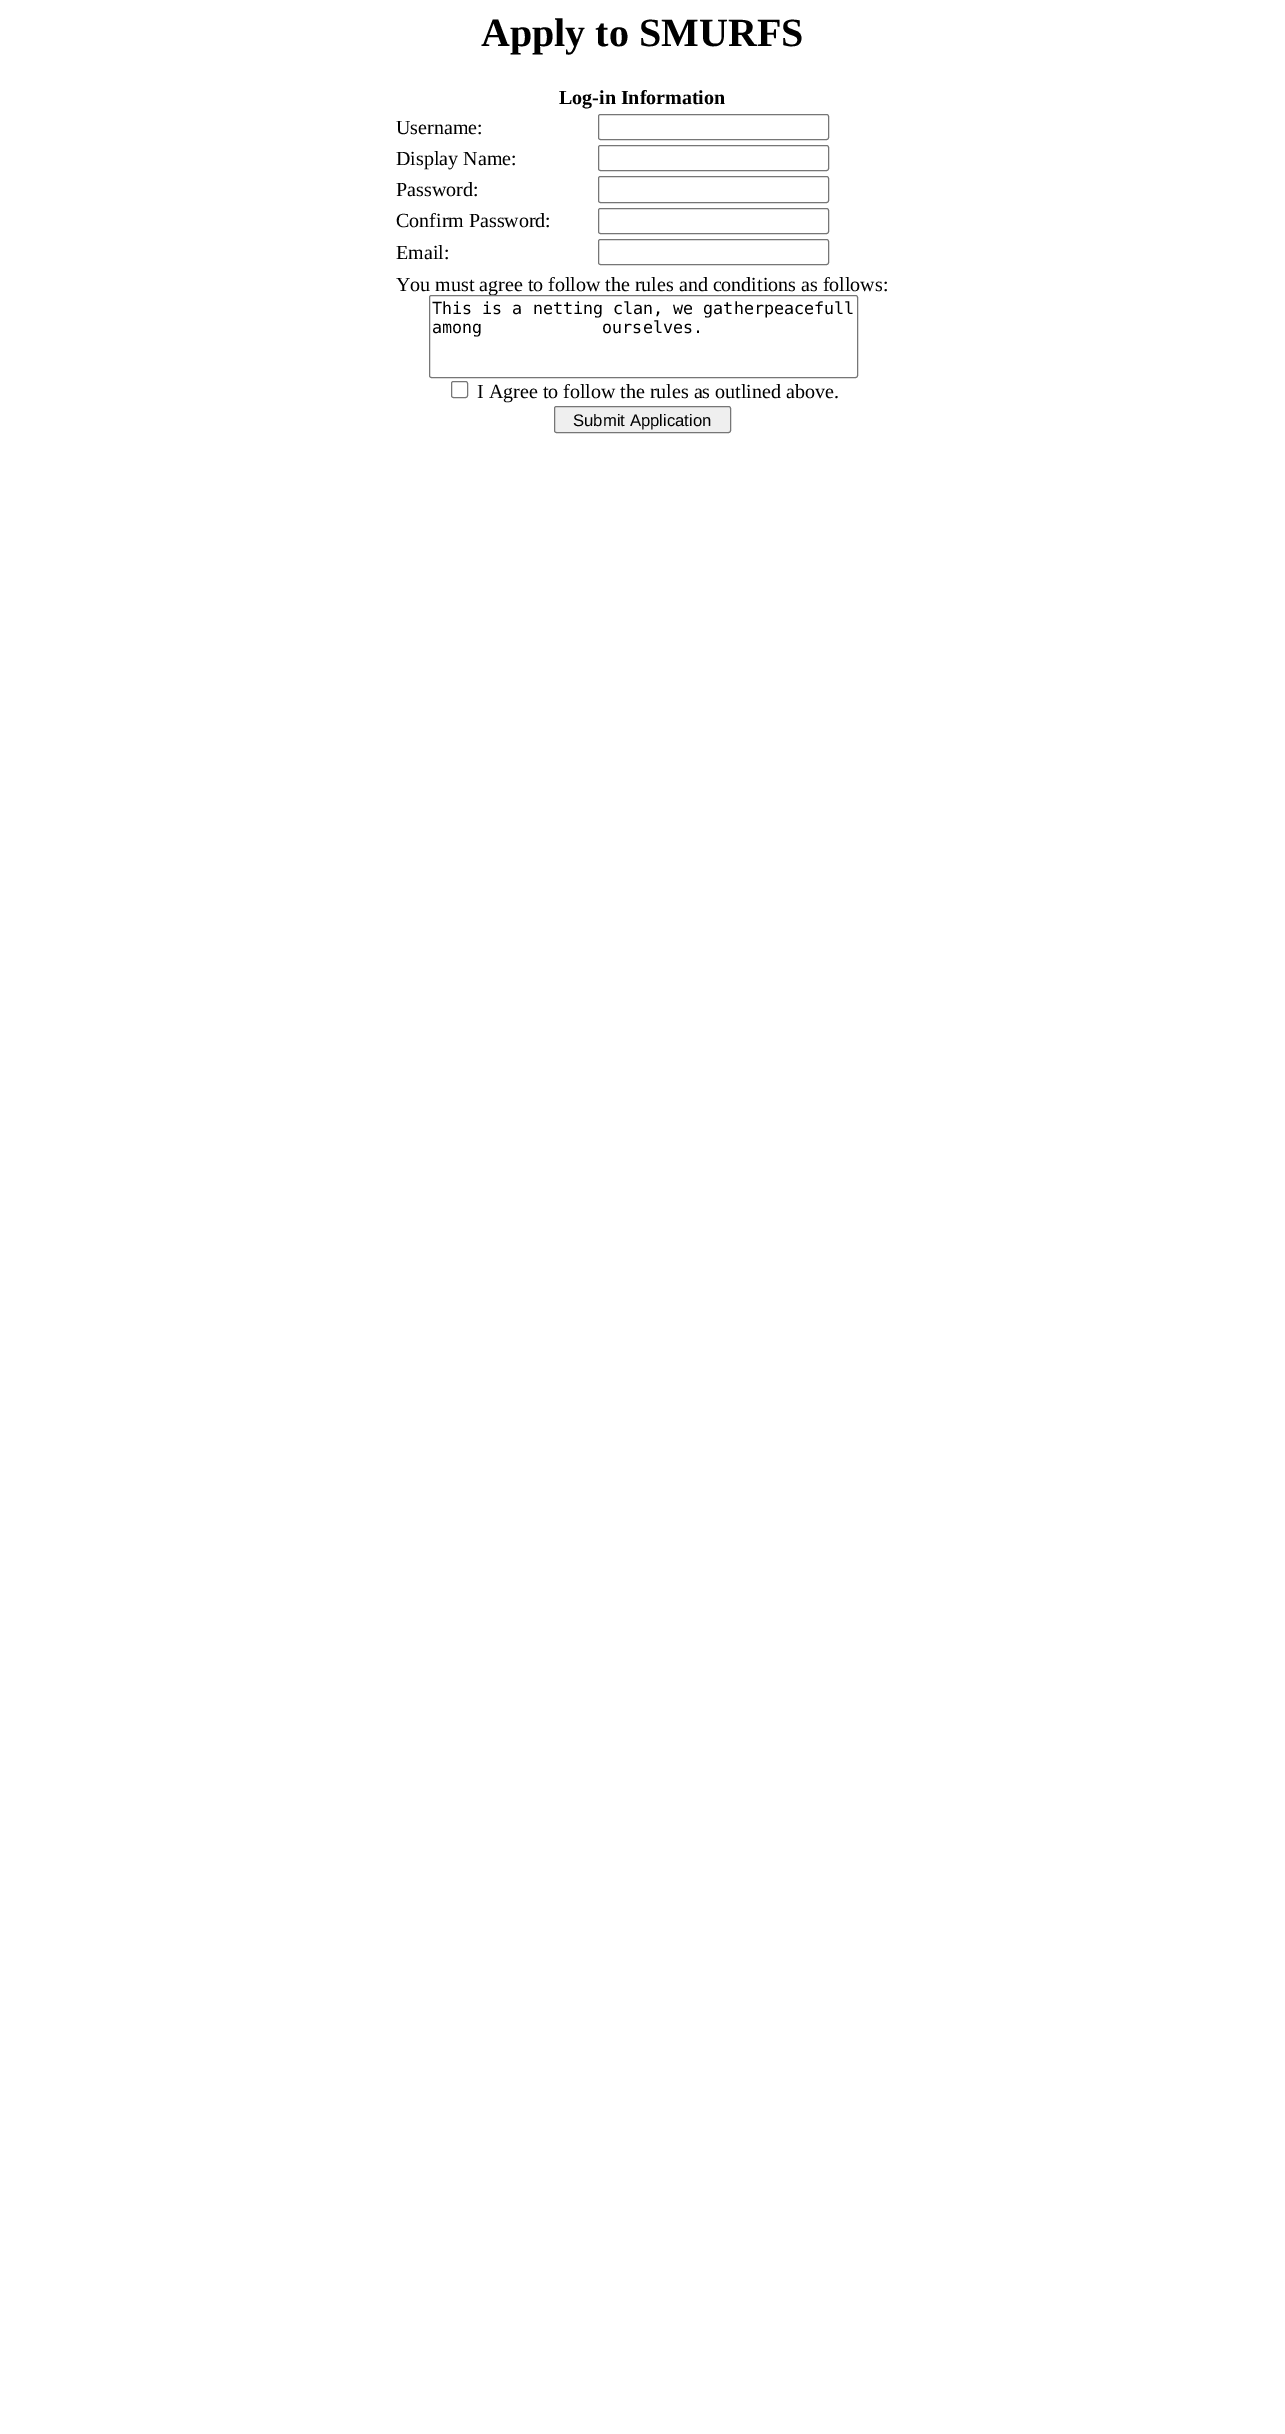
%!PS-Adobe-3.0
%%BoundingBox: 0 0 1285 2434
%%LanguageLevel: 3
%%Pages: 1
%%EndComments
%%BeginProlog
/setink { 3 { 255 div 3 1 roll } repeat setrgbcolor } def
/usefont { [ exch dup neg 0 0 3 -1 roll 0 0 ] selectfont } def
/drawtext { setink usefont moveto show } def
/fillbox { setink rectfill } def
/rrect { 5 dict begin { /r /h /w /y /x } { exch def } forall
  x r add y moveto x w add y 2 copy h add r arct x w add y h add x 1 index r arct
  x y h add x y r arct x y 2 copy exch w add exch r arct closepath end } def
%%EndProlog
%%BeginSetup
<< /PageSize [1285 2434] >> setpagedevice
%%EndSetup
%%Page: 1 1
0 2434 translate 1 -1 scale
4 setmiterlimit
0 0 1285 2434 255 255 255 fillbox
(Apply to SMURFS) 481 46 /LiberationSerif-Bold 40 0 0 0 drawtext
(Log-in Information) 559 104 /LiberationSerif-Bold 20 0 0 0 drawtext
(Username:) 396 134 /LiberationSerif-Regular 20 0 0 0 drawtext
118 118 118 setink
598.5 114.5 230 25 2 rrect stroke
(Display Name:) 396 165 /LiberationSerif-Regular 20 0 0 0 drawtext
118 118 118 setink
598.5 145.5 230 25 2 rrect stroke
(Password:) 396 196 /LiberationSerif-Regular 20 0 0 0 drawtext
118 118 118 setink
598.5 176.5 230 26 2 rrect stroke
(Confirm Password:) 396 227 /LiberationSerif-Regular 20 0 0 0 drawtext
118 118 118 setink
598.5 208.5 230 25 2 rrect stroke
(Email:) 396 259 /LiberationSerif-Regular 20 0 0 0 drawtext
118 118 118 setink
598.5 239.5 230 25 2 rrect stroke
(You must agree to follow the rules and conditions as follows:) 396 291 /LiberationSerif-Regular 20 0 0 0 drawtext
255 255 255 setink
429.5 295.5 428 82 2 rrect gsave fill grestore
118 118 118 setink
stroke
(This is a netting clan, we gatherpeacefull) 432 314 /DejaVuSansMono-Regular 16.7 0 0 0 drawtext
432 333 moveto 110 0 32 (among ourselves.) widthshow
118 118 118 setink
451.5 381.5 16 16 2 rrect stroke
(I Agree to follow the rules as outlined above.) 477 398 /LiberationSerif-Regular 20 0 0 0 drawtext
239 239 239 setink
554.5 406.5 176 26 2 rrect gsave fill grestore
118 118 118 setink
stroke
(Submit Application) 573 426 /LiberationSans-Regular 16.7 0 0 0 drawtext
showpage
%%EOF
